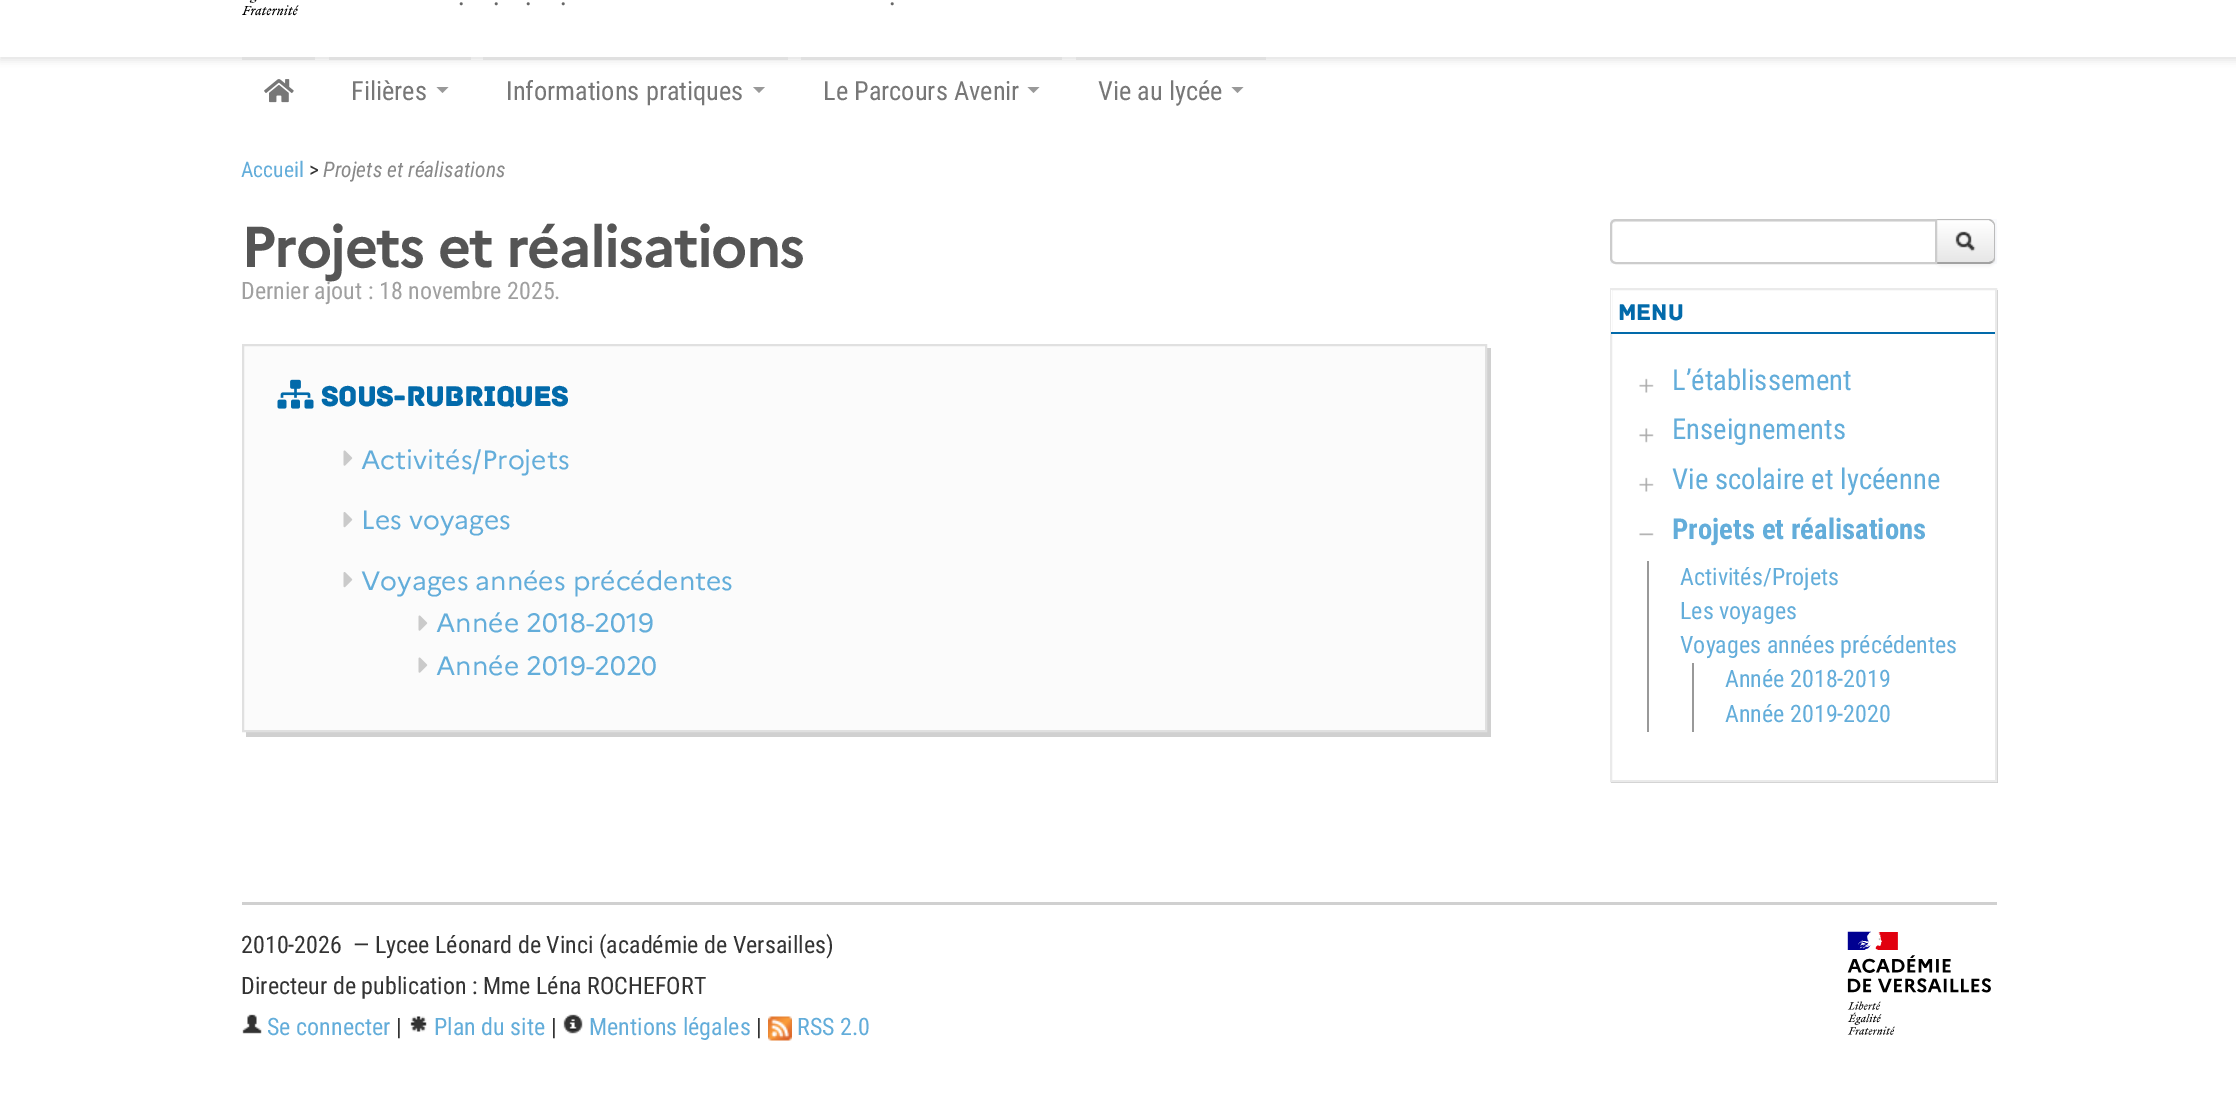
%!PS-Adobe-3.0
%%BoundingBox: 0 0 2236 1109
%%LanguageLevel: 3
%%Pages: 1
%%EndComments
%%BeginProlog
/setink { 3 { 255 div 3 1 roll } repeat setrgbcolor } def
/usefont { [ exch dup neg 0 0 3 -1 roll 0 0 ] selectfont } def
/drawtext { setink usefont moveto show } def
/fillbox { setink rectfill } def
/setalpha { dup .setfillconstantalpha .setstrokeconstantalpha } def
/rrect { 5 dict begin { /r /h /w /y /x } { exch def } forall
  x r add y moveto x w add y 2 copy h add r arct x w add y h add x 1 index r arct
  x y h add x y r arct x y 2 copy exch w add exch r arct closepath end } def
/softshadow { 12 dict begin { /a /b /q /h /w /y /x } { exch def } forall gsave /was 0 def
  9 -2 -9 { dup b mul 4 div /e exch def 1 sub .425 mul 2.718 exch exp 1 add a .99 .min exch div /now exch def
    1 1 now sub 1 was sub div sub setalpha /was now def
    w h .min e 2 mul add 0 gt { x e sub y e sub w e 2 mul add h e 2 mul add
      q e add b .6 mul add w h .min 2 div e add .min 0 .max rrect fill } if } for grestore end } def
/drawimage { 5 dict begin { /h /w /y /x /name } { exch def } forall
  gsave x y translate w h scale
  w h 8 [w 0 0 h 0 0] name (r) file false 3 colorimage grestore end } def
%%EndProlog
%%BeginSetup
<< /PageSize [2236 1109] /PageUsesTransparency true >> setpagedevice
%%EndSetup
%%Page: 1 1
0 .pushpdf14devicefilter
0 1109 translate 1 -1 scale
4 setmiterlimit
0 0 2236 1109 255 255 255 fillbox
gsave
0 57 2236 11 rectclip
224 224 224 setink
0 -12 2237 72 0 4 1 softshadow
grestore
(assets/img1.rgb) 242 0 57 16 drawimage
(.) 458 5 /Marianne-Regular 24 102 102 102 drawtext
(.) 493 5 /Marianne-Regular 24 102 102 102 drawtext
(.) 525 5 /Marianne-Regular 24 102 102 102 drawtext
(.) 560 5 /Marianne-Regular 24 102 102 102 drawtext
(.) 889 5 /Marianne-Regular 24 102 102 102 drawtext
242 57 73 3 224 224 224 fillbox
(assets/img2.rgb) 264 79 30 24 drawimage
329 57 142 3 224 224 224 fillbox
(Filières) 351 100 /RobotoCondensed-Regular 26.4 119 119 119 drawtext
153 153 153 setink
436.5 87 moveto 448.5 87 lineto 442.5 93 lineto closepath fill
483 57 305 3 224 224 224 fillbox
(Informations pratiques) 506 100 /RobotoCondensed-Regular 26.4 119 119 119 drawtext
153 153 153 setink
753 87 moveto 765 87 lineto 759 93 lineto closepath fill
801 57 261 3 224 224 224 fillbox
(Le Parcours Avenir) 823 100 /RobotoCondensed-Regular 26.4 119 119 119 drawtext
153 153 153 setink
1027.5 87 moveto 1039.5 87 lineto 1033.5 93 lineto closepath fill
1076 57 190 3 224 224 224 fillbox
(Vie au lycée) 1098 100 /RobotoCondensed-Regular 26.4 119 119 119 drawtext
153 153 153 setink
1231.5 87 moveto 1243.5 87 lineto 1237.5 93 lineto closepath fill
(Accueil) 241 177 /RobotoCondensed-Regular 21.5 99 173 218 drawtext
(>) 309 177 /RobotoCondensed-Regular 21.5 51 51 51 drawtext
(Projets et réalisations) 323 177 /RobotoCondensed-Italic 21.5 136 136 136 drawtext
/Marianne-Bold 57.6 usefont
85 85 85 setink
241 267 moveto -1.75 0 (Projets et réalisations) ashow
(Dernier ajout : 18 novembre 2025.) 241 299 /RobotoCondensed-Regular 24 160 160 160 drawtext
208 208 208 setink
246 732 moveto 246 737 lineto 1491 737 lineto 1491 348 lineto 1486 348 lineto 1486 732 lineto closepath fill
251 251 251 setink
243 345 moveto 1486 345 lineto 1486 731 lineto 243 731 lineto closepath gsave fill grestore
224 224 224 setink
2 setlinewidth
stroke
(assets/img3.rgb) 277 379 37 30 drawimage
(Sous-rubriques) 321 406 /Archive-Bold 28.75 2 106 170 drawtext
(assets/img4.rgb) 343 450 10 16 drawimage
(Activités/Projets) 361 469 /Marianne-Regular 26.4 99 173 218 drawtext
(assets/img5.rgb) 343 512 10 16 drawimage
(Les voyages) 361 529 /Marianne-Regular 26.4 99 173 218 drawtext
(assets/img5.rgb) 343 572 10 16 drawimage
(Voyages années précédentes) 361 590 /Marianne-Regular 26.4 99 173 218 drawtext
(assets/img4.rgb) 418 615 10 16 drawimage
(Année 2018-2019) 436 632 /Marianne-Regular 26.4 99 173 218 drawtext
(assets/img4.rgb) 418 657 10 16 drawimage
(Année 2019-2020) 436 675 /Marianne-Regular 26.4 99 173 218 drawtext
1610 219 387 45 249 250 253 fillbox
0 0 0 setink
1935 221 60 45 6 1.5 0.05 softshadow
245 245 245 setink
1935 219 moveto 1989 219 lineto 1992.5 219 1995 221.5 1995 225 curveto 1995 258 lineto 1995 261.5 1992.5 264 1989 264 curveto 1935 264 lineto closepath fill
gsave
1935 219 moveto 1989 219 lineto 1992.5 219 1995 221.5 1995 225 curveto 1995 258 lineto 1995 261.5 1992.5 264 1989 264 curveto 1935 264 lineto closepath clip newpath
gsave 1937 221 moveto 1995 221 lineto 1995 263 lineto 1937 263 lineto closepath clip newpath
<< /ShadingType 2 /ColorSpace /DeviceRGB /Coords [1965 221 1965 263] /Extend [true true] /Function << /FunctionType 2 /Domain [0 1] /C0 [1 1 1] /C1 [0.902 0.902 0.902] /N 1 >> >> shfill grestore
grestore
187 187 187 setink
1935 219 moveto 1936 220 lineto 1989 220 lineto 1992 222 lineto 1993 221 lineto 1992 220 1990 219 1989 219 curveto closepath fill
1995 258 moveto 1995 225 lineto 1995 224 1994 222 1993 221 curveto 1992 222 lineto 1993 223 1994 224 1994 225 curveto 1994 258 lineto 1994 259 1993 260 1992 261 curveto 1993 262 lineto 1994 261 1995 260 1995 258 curveto closepath fill
162 162 162 setink
1989 264 moveto 1990 264 1992 263 1993 262 curveto 1992 261 lineto 1989 262 lineto 1937 262 lineto 1935 264 lineto closepath fill
255 255 255 setink
1616 219 moveto 1937 219 lineto 1937 264 lineto 1616 264 lineto 1612.5 264 1610 261.5 1610 258 curveto 1610 225 lineto 1610 221.5 1612.5 219 1616 219 curveto closepath fill
236 236 236 setink
1616 222 moveto 1935 222 lineto 1935 221 lineto 1616 221 lineto 1613 221 1611 223 1611 226 curveto 1611 224 1613 222 1616 222 curveto closepath fill
204 204 204 setink
1616 220 moveto 1936 220 lineto 1936 263 lineto 1616 263 lineto 1613 263 1611 261 1611 258 curveto 1611 225 lineto 1611 222 1613 220 1616 220 curveto closepath stroke
(assets/img6.rgb) 1955 231 21 21 drawimage
1611 782 moveto 1611 783 lineto 1998 783 lineto 1998 290 lineto 1996 290 lineto 1996 782 lineto closepath fill
234 234 234 setink
1611 289 385 492 rectstroke
1611 290 1 42 255 255 255 fillbox
1611 332 384 2 2 106 170 fillbox
(Menu) 1618 320 /Archive-Regular 24 2 106 170 drawtext
(assets/img7.rgb) 1639 378 15 15 drawimage
(L’établissement) 1672 390 /RobotoCondensed-Regular 28.75 99 173 218 drawtext
(assets/img8.rgb) 1639 428 15 15 drawimage
(Enseignements) 1672 439 /RobotoCondensed-Regular 28.75 99 173 218 drawtext
(assets/img7.rgb) 1639 477 15 15 drawimage
(Vie scolaire et lycéenne) 1672 489 /RobotoCondensed-Regular 28.75 99 173 218 drawtext
(assets/img9.rgb) 1639 533 15 3 drawimage
(Projets et réalisations) 1672 539 /RobotoCondensed-Bold 28.75 99 173 218 drawtext
1647 561 2 171 153 153 153 fillbox
(Activités/Projets) 1680 585 /RobotoCondensed-Regular 24 99 173 218 drawtext
(Les voyages) 1680 619 /RobotoCondensed-Regular 24 99 173 218 drawtext
(Voyages années précédentes) 1680 653 /RobotoCondensed-Regular 24 99 173 218 drawtext
1692 663 2 69 153 153 153 fillbox
(Année 2018-2019) 1725 687 /RobotoCondensed-Regular 24 99 173 218 drawtext
(Année 2019-2020) 1725 722 /RobotoCondensed-Regular 24 99 173 218 drawtext
242 902 1755 3 208 208 208 fillbox
(2010-2026  — Lycee Léonard de Vinci \(académie de Versailles\)) 241 953 /RobotoCondensed-Regular 24 51 51 51 drawtext
(Directeur de publication : Mme Léna ROCHEFORT) 241 994 /RobotoCondensed-Regular 24 51 51 51 drawtext
(assets/img10.rgb) 242 1014 20 20 drawimage
(Se connecter) 267 1035 /RobotoCondensed-Regular 24 99 173 218 drawtext
(|) 396 1035 /RobotoCondensed-Regular 24 51 51 51 drawtext
(assets/img11.rgb) 410 1016 17 16 drawimage
(Plan du site) 434 1035 /RobotoCondensed-Regular 24 99 173 218 drawtext
(|) 551 1035 /RobotoCondensed-Regular 24 51 51 51 drawtext
(assets/img12.rgb) 563 1014 20 20 drawimage
(Mentions légales) 589 1035 /RobotoCondensed-Regular 24 99 173 218 drawtext
(|) 756 1035 /RobotoCondensed-Regular 24 51 51 51 drawtext
(assets/img13.rgb) 768 1016 24 25 drawimage
(RSS 2.0) 797 1035 /RobotoCondensed-Regular 24 99 173 218 drawtext
(assets/img14.rgb) 1847 931 144 104 drawimage
.poppdf14devicefilter showpage
%%EOF
